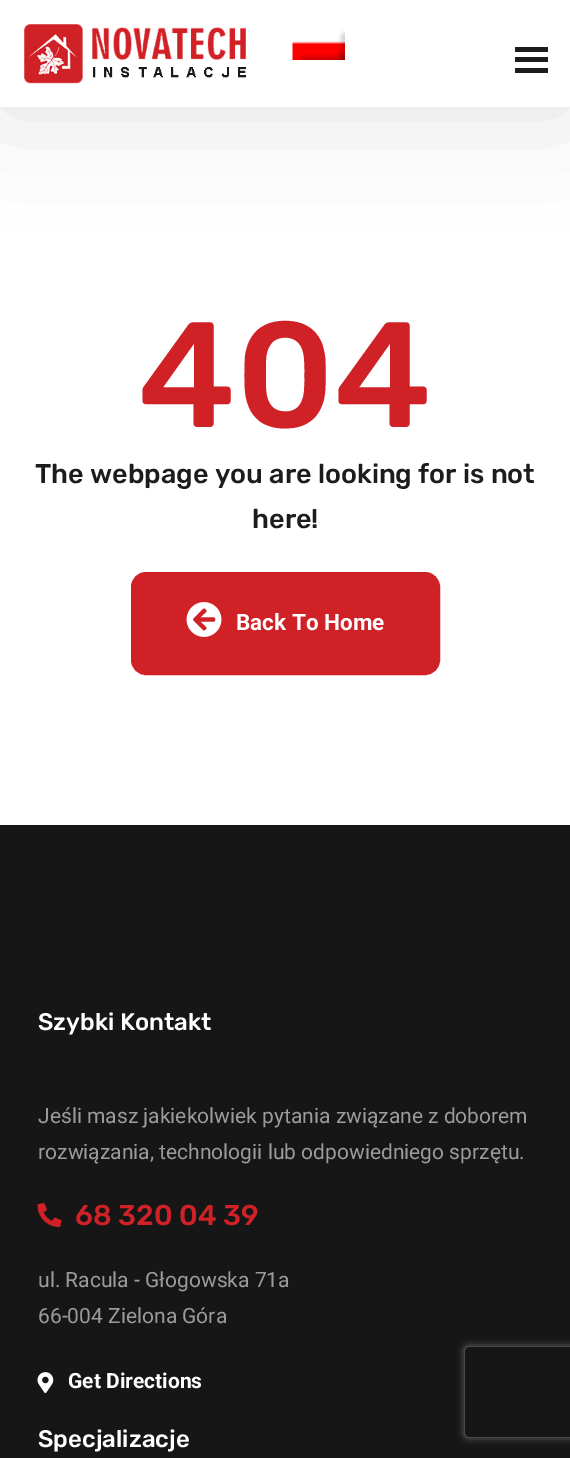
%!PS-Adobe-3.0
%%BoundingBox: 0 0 570 1458
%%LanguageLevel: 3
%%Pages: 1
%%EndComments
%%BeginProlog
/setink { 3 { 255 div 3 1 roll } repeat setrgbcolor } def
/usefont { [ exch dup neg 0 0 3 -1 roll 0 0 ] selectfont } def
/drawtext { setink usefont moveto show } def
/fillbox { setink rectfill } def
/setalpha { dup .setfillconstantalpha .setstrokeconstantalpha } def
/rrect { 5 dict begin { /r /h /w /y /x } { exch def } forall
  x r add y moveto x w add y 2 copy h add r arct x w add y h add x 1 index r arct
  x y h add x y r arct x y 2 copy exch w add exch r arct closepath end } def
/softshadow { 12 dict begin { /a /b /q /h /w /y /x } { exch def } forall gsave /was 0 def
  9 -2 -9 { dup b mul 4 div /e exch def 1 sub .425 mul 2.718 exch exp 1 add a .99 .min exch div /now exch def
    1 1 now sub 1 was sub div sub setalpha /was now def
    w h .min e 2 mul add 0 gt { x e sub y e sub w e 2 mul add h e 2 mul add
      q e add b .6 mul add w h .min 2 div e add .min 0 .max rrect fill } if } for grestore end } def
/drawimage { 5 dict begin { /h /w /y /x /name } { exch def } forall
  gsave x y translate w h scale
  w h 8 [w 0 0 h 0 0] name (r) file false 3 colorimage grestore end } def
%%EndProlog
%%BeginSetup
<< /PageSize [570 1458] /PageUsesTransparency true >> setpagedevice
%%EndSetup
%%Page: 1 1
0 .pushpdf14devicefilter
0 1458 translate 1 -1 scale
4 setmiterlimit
0 0 570 1458 255 255 255 fillbox
gsave
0 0 moveto 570 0 lineto 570 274 lineto 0 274 lineto closepath 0 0 moveto 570 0 lineto 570 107 lineto 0 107 lineto closepath eoclip newpath
40 40 40 setink
0 2 570 106 0 55 0.15 softshadow
grestore
(assets/img1.rgb) 24 24 222 60 drawimage
(assets/img2.rgb) 292 30 53 30 drawimage
515 47 33 5 28 28 28 fillbox
515 57 33 5 28 28 28 fillbox
515 68 33 5 28 28 28 fillbox
(404) 138 427 /Rubik-Medium 150 208 33 39 drawtext
(The webpage you are looking for is not) 35 483 /Rubik-Medium 27 28 28 28 drawtext
(here!) 252 528 /Rubik-Medium 27 28 28 28 drawtext
208 33 39 setink
132.5 573.5 306 100 13.5 rrect gsave fill grestore
3 setlinewidth
stroke
(assets/img3.rgb) 186 602 36 35 drawimage
(Back To Home) 236 630 /Roboto-Bold 22.5 255 255 255 drawtext
0 825 570 633 22 22 22 fillbox
(Szybki Kontakt) 38 1030 /Rubik-Medium 24 255 255 255 drawtext
(Jeśli masz jakiekolwiek pytania związane z doborem) 38 1123 /Roboto-Regular 21 155 155 155 drawtext
(rozwiązania, technologii lub odpowiedniego sprzętu.) 38 1159 /Roboto-Regular 21 155 155 155 drawtext
(assets/img4.rgb) 37 1203 25 24 drawimage
(68 320 04 39) 75 1225 /Rubik-Medium 28.5 208 33 39 drawtext
(ul. Racula - Głogowska 71a) 38 1287 /Roboto-Regular 21 155 155 155 drawtext
(66-004 Zielona Góra) 38 1323 /Roboto-Regular 21 155 155 155 drawtext
(assets/img5.rgb) 37 1372 17 22 drawimage
(Get Directions) 68 1388 /Roboto-Bold 21 255 255 255 drawtext
(Specjalizacje) 38 1447 /Rubik-Medium 24 255 255 255 drawtext
gsave
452 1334 moveto 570 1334 lineto 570 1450 lineto 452 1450 lineto closepath 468 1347 moveto 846 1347 lineto 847.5 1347 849 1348.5 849 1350 curveto 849 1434 lineto 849 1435.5 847.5 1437 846 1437 curveto 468 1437 lineto 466.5 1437 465 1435.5 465 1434 curveto 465 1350 lineto 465 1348.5 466.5 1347 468 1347 curveto closepath eoclip newpath
128 128 128 setink
465 1347 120 90 3 4 1 softshadow
grestore
.poppdf14devicefilter showpage
%%EOF
